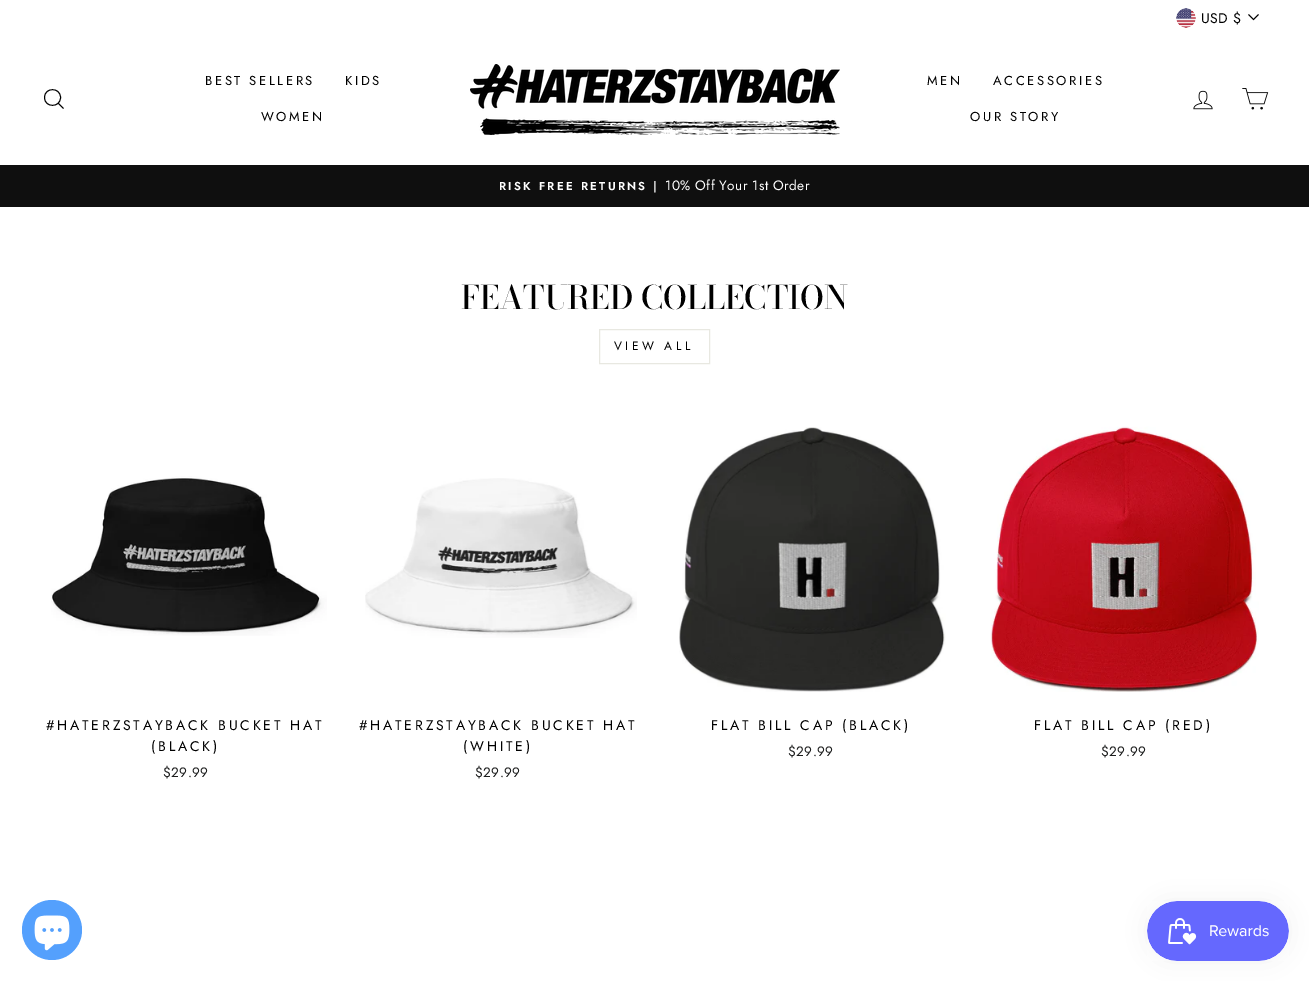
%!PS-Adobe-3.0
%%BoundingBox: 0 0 1309 981
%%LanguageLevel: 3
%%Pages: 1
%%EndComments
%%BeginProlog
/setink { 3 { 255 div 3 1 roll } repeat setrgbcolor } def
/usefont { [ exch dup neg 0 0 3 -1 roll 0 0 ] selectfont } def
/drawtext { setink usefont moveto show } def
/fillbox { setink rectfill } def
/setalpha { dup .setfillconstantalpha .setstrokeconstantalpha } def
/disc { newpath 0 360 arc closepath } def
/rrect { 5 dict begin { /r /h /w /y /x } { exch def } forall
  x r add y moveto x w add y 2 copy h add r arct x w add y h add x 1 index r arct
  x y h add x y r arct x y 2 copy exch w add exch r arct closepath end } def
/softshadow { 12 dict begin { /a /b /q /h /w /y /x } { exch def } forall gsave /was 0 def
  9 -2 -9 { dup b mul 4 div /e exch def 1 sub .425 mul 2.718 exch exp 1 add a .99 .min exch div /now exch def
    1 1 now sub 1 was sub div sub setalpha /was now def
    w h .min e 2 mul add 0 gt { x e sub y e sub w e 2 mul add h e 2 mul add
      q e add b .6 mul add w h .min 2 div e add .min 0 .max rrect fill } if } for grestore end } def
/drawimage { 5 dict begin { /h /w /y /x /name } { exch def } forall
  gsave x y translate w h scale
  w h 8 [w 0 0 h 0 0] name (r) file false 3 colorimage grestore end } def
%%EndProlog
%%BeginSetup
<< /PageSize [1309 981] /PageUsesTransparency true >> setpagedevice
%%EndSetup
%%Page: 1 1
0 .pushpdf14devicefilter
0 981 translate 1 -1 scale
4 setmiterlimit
0 0 1309 981 255 255 255 fillbox
(assets/img1.rgb) 1176 8 20 20 drawimage
/Jost-Regular 14 usefont
0 0 0 setink
1201 23 moveto 0.5 0 (USD $) ashow
0.8 setlinewidth
1248.5 14.5 moveto 1253.5 19.5 lineto 1258.5 14.5 lineto stroke
0.9 setlinewidth
60.5 97.5 moveto 60.5 108 44.5 108 44.5 97.5 curveto 44.5 87 60.5 87 60.5 97.5 curveto closepath 63.5 108.5 moveto 58.5 103.5 lineto stroke
/Jost-Regular 13 usefont
205 85 moveto 2.6 0 (BEST SELLERS) ashow
345 85 moveto 2.6 0 (KIDS) ashow
261 121 moveto 2.6 0 (WOMEN) ashow
(assets/img2.rgb) 470 64 370 71 drawimage
927 85 moveto 2.6 0 (MEN) ashow
993 85 moveto 2.6 0 (ACCESSORIES) ashow
970 121 moveto 2.6 0 (OUR STORY) ashow
(assets/img3.rgb) 1193 90 20 20 drawimage
(assets/img4.rgb) 1242 88 27 22 drawimage
0 165 1309 42 15 15 15 fillbox
/Jost-SemiBold 11.5 usefont
255 255 255 setink
499 190 moveto 2.3 0 (RISK FREE RETURNS |) ashow
/Jost-Regular 13.6 usefont
665 190 moveto 0.4 0 (10% Off Your 1st Order) ashow
(FEATURED COLLECTION) 461 309 /BodoniModa-Medium 32.25 0 0 0 drawtext
232 232 225 setink
1 setlinewidth
599.5 329.5 110 34 rectstroke
/Jost-Regular 12 usefont
0 0 0 setink
614 350 moveto 3.5 0 (VIEW ALL) ashow
(assets/img5.rgb) 51 476 276 160 drawimage
/Jost-Regular 14 usefont
46 730 moveto 2.8 0 (#HATERZSTAYBACK BUCKET HAT) ashow
151 751 moveto 2.8 0 (\(BLACK\)) ashow
/Jost-Regular 13.6 usefont
28 29 29 setink
163 777 moveto 0.4 0 ($29.99) ashow
(assets/img6.rgb) 365 478 272 160 drawimage
/Jost-Regular 14 usefont
0 0 0 setink
359 730 moveto 2.8 0 (#HATERZSTAYBACK BUCKET HAT) ashow
463 751 moveto 2.8 0 (\(WHITE\)) ashow
/Jost-Regular 13.6 usefont
28 29 29 setink
475 777 moveto 0.4 0 ($29.99) ashow
(assets/img7.rgb) 679 427 267 265 drawimage
/Jost-Regular 14 usefont
0 0 0 setink
711 730 moveto 2.8 0 (FLAT BILL CAP \(BLACK\)) ashow
/Jost-Regular 13.6 usefont
28 29 29 setink
788 756 moveto 0.4 0 ($29.99) ashow
(assets/img8.rgb) 990 426 269 266 drawimage
/Jost-Regular 14 usefont
0 0 0 setink
1034 730 moveto 2.8 0 (FLAT BILL CAP \(RED\)) ashow
/Jost-Regular 13.6 usefont
28 29 29 setink
1101 756 moveto 0.4 0 ($29.99) ashow
84 160 253 setink
52 930 30 disc fill
(assets/img9.rgb) 34 915 36 36 drawimage
0 0 0 setink
1147 901 142 60 30 12.5 0.05 softshadow
(assets/img10.rgb) 1147 901 142 60 drawimage
.poppdf14devicefilter showpage
%%EOF
